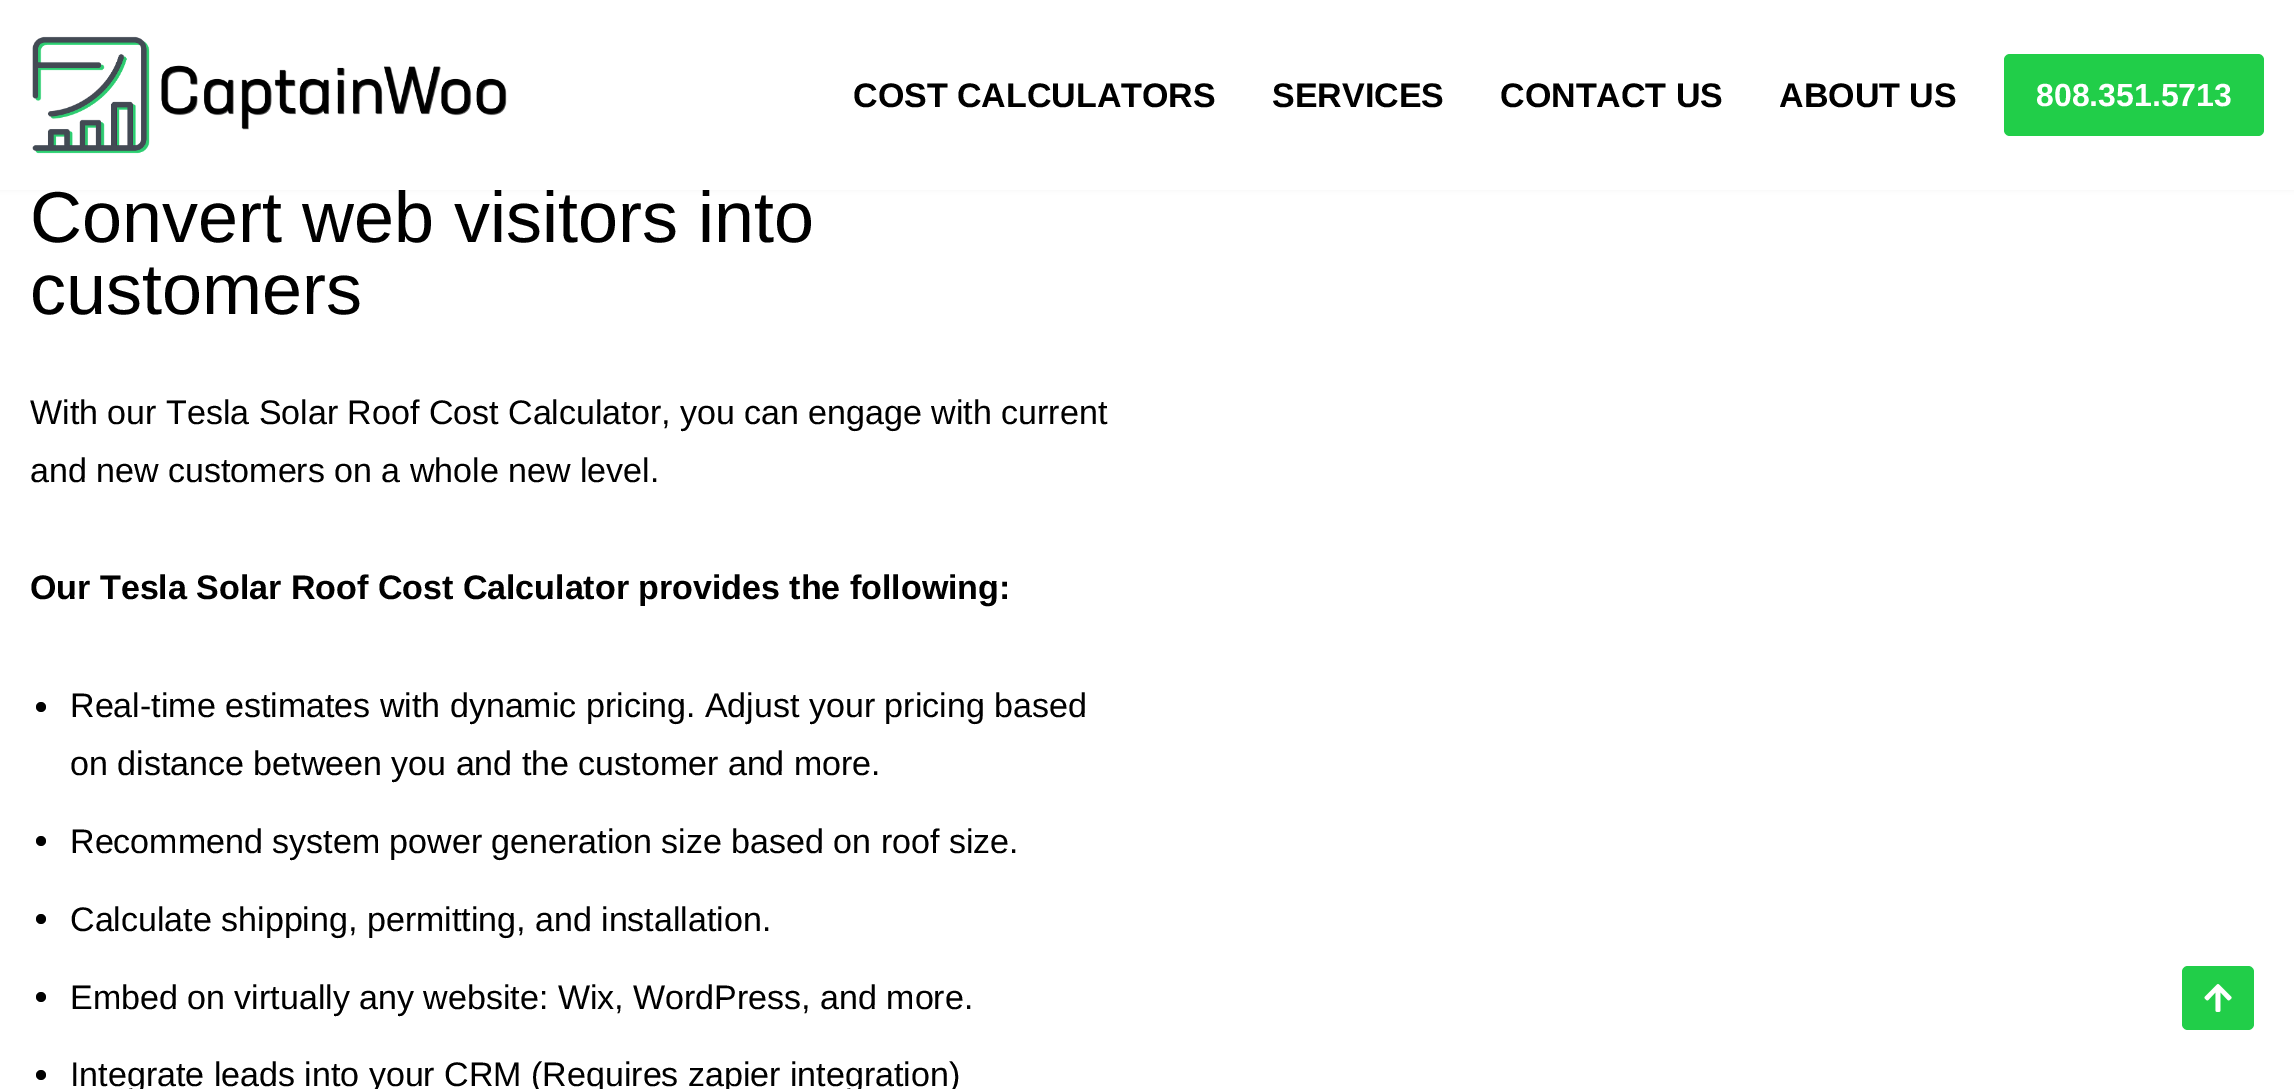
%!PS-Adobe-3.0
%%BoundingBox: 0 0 2294 1089
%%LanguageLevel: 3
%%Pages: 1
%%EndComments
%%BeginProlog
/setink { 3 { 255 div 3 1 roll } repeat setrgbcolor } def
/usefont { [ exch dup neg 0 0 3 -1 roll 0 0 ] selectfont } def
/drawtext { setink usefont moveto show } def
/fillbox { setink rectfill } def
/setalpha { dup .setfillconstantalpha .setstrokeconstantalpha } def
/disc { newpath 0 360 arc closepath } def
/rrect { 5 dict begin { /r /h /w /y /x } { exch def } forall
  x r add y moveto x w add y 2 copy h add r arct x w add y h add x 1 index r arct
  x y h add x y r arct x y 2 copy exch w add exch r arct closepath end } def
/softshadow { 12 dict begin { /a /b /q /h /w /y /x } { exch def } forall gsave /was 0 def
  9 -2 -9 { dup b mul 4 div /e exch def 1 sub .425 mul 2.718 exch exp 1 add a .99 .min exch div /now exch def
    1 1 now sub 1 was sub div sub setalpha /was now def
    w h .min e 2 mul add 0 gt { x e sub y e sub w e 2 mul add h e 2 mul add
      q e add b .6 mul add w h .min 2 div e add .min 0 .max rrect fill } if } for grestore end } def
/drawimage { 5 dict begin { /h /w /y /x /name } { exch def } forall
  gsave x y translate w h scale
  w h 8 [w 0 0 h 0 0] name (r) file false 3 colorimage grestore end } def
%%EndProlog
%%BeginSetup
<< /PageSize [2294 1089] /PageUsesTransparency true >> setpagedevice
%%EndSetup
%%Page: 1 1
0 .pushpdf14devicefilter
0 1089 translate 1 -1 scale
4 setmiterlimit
0 0 2294 1089 255 255 255 fillbox
0 0 0 setink
0 -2 2294 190 0 3 0.1 softshadow
(Convert web visitors into) 30 242 /LiberationSans-Regular 72 0 0 0 drawtext
0 0 2294 190 255 255 255 fillbox
(assets/img1.rgb) 32 36 475 118 drawimage
(COST CALCULATORS) 853 107 /LiberationSans-Bold 34 0 0 0 drawtext
(SERVICES) 1272 107 /LiberationSans-Bold 34 0 0 0 drawtext
(CONTACT US) 1500 107 /LiberationSans-Bold 34 0 0 0 drawtext
(ABOUT US) 1779 107 /LiberationSans-Bold 34 0 0 0 drawtext
33 206 73 setink
2004 54 260 82 6 rrect fill
(808.351.5713) 2036 106 /LiberationSans-Bold 32 255 255 255 drawtext
(customers) 30 314 /LiberationSans-Regular 72 0 0 0 drawtext
(With our Tesla Solar Roof Cost Calculator, you can engage with current) 30 424 /LiberationSans-Regular 34 0 0 0 drawtext
(and new customers on a whole new level.) 30 482 /LiberationSans-Regular 34 0 0 0 drawtext
(Our Tesla Solar Roof Cost Calculator provides the following:) 30 599 /LiberationSans-Bold 34 0 0 0 drawtext
41 707 5 disc fill
(Real-time estimates with dynamic pricing. Adjust your pricing based) 70 717 /LiberationSans-Regular 34 0 0 0 drawtext
(on distance between you and the customer and more.) 70 775 /LiberationSans-Regular 34 0 0 0 drawtext
41 841 5 disc fill
(Recommend system power generation size based on roof size.) 70 853 /LiberationSans-Regular 34 0 0 0 drawtext
41 919 5 disc fill
(Calculate shipping, permitting, and installation.) 70 931 /LiberationSans-Regular 34 0 0 0 drawtext
41 997 5 disc fill
(Embed on virtually any website: Wix, WordPress, and more.) 70 1009 /LiberationSans-Regular 34 0 0 0 drawtext
41 1075 5 disc fill
(Integrate leads into your CRM \(Requires zapier integration\)) 70 1086 /LiberationSans-Regular 34 0 0 0 drawtext
33 206 73 setink
2182 966 72 64 6 rrect fill
(assets/img2.rgb) 2204 984 28 28 drawimage
.poppdf14devicefilter showpage
%%EOF
